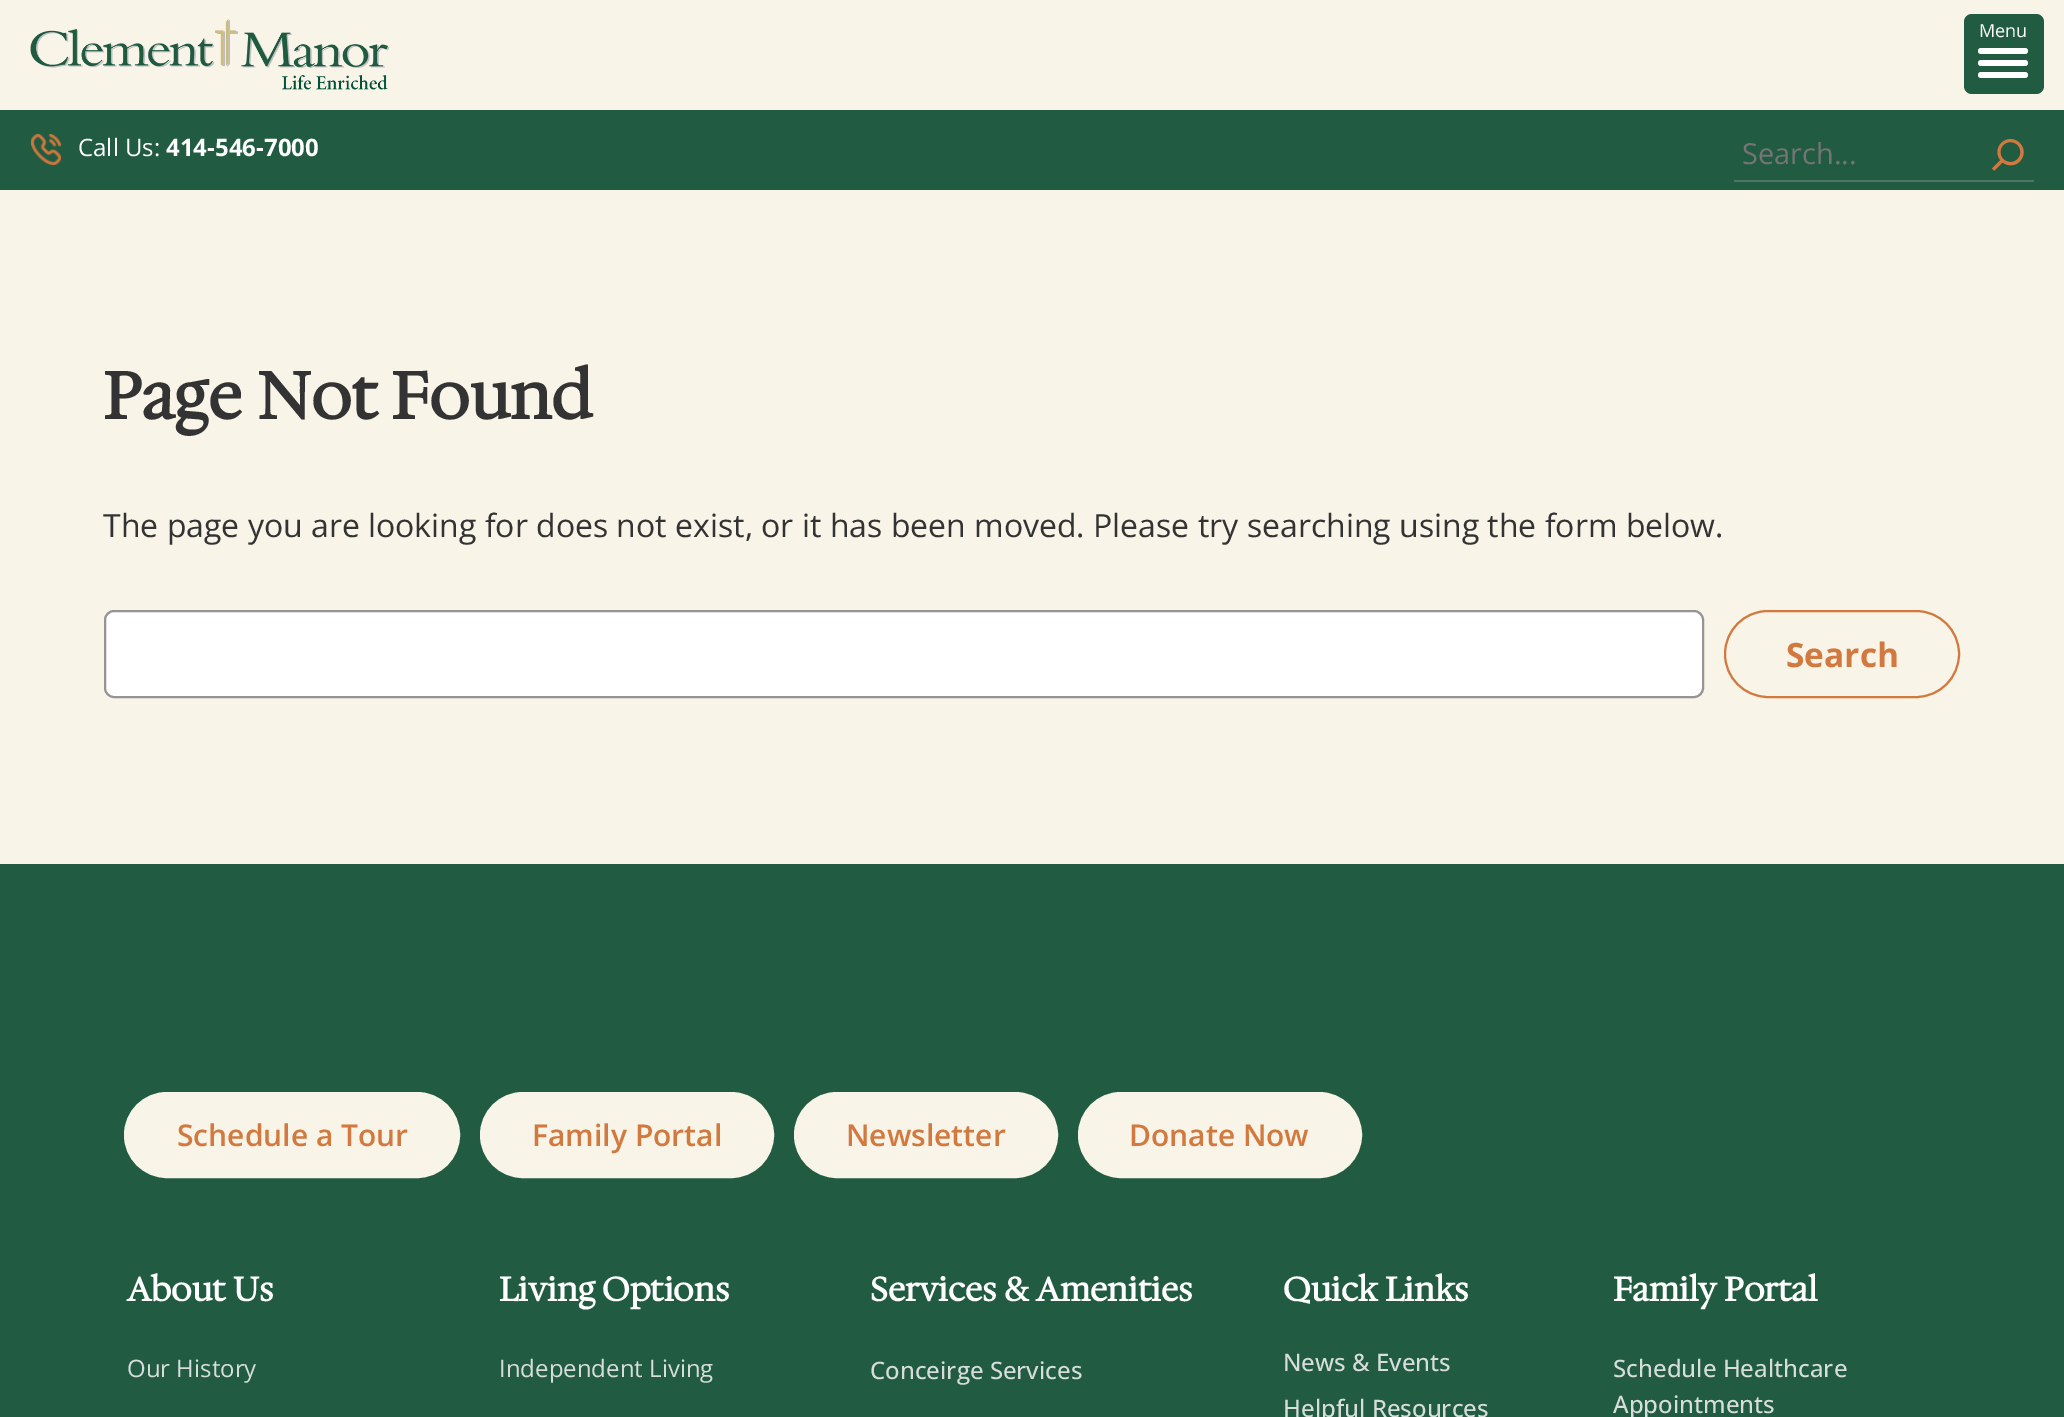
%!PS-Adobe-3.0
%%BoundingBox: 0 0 2064 1417
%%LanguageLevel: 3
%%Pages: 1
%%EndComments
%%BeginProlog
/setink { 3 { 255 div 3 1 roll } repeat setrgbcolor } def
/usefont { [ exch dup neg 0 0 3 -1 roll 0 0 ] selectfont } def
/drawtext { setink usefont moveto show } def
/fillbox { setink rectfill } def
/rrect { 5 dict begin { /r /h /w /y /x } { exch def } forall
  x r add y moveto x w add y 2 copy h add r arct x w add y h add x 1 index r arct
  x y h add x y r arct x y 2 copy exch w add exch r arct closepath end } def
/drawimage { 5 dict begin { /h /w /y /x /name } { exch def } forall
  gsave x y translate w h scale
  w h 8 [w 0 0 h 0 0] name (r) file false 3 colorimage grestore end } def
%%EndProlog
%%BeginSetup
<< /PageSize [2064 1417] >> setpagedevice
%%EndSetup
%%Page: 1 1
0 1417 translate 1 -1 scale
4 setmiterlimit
0 0 2064 1417 249 244 232 fillbox
33 91 65 setink
1964 14 80 80 8 rrect fill
(Menu) 1979 37 /OpenSans-Regular 18 255 255 255 drawtext
1978 60 50 6 3 rrect fill
1978 48 50 6 3 rrect fill
1978 72 50 6 3 rrect fill
(assets/img1.rgb) 30 18 360 72 drawimage
0 110 2064 80 33 91 65 fillbox
(assets/img2.rgb) 31 133 31 33 drawimage
(Call Us:) 78 156 /OpenSans-Regular 24 255 255 255 drawtext
(414-546-7000) 166 156 /OpenSans-Bold 24 255 255 255 drawtext
1734 180 300 2 81 116 100 fillbox
(Search...) 1742 164 /OpenSans-Regular 29 117 117 117 drawtext
(assets/img3.rgb) 1991 138 33 33 drawimage
(Page Not Found) 103 419 /HedvigLettersSerif-Bold 66 51 51 51 drawtext
(The page you are looking for does not exist, or it has been moved. Please try searching using the form below.) 103 537 /OpenSans-Regular 32 51 51 51 drawtext
255 255 255 setink
105 611 1598 86 9 rrect gsave fill grestore
148 148 148 setink
2 setlinewidth
stroke
209 121 62 setink
1725 611 234 86 43 rrect stroke
(Search) 1786 667 /OpenSans-Bold 33.5 209 121 62 drawtext
0 864 2064 553 33 91 65 fillbox
249 244 232 setink
125 1093 334 84 42 rrect gsave fill grestore
stroke
(Schedule a Tour) 177 1146 /OpenSans-SemiBold 30 209 121 62 drawtext
249 244 232 setink
481 1093 292 84 42 rrect gsave fill grestore
stroke
(Family Portal) 532 1146 /OpenSans-SemiBold 30 209 121 62 drawtext
249 244 232 setink
795 1093 262 84 42 rrect gsave fill grestore
stroke
(Newsletter) 846 1146 /OpenSans-SemiBold 30 209 121 62 drawtext
249 244 232 setink
1079 1093 282 84 42 rrect gsave fill grestore
stroke
(Donate Now) 1129 1146 /OpenSans-SemiBold 30 209 121 62 drawtext
(About Us) 127 1301 /HedvigLettersSerif-Bold 33.5 255 255 255 drawtext
(Our History) 127 1377 /OpenSans-Regular 24 214 221 218 drawtext
(Living Options) 499 1301 /HedvigLettersSerif-Bold 33.5 255 255 255 drawtext
(Independent Living) 499 1377 /OpenSans-Regular 24 214 221 218 drawtext
(Services & Amenities) 870 1301 /HedvigLettersSerif-Bold 33.5 255 255 255 drawtext
(Conceirge Services) 870 1379 /OpenSans-Medium 24 214 221 218 drawtext
(Quick Links) 1283 1301 /HedvigLettersSerif-Bold 33.5 255 255 255 drawtext
(News & Events) 1283 1371 /OpenSans-Medium 24 214 221 218 drawtext
(Helpful Resources) 1283 1417 /OpenSans-Medium 24 214 221 218 drawtext
(Family Portal) 1613 1301 /HedvigLettersSerif-Bold 33.5 255 255 255 drawtext
(Schedule Healthcare) 1613 1377 /OpenSans-Medium 24 214 221 218 drawtext
(Appointments) 1613 1413 /OpenSans-Medium 24 214 221 218 drawtext
showpage
%%EOF
